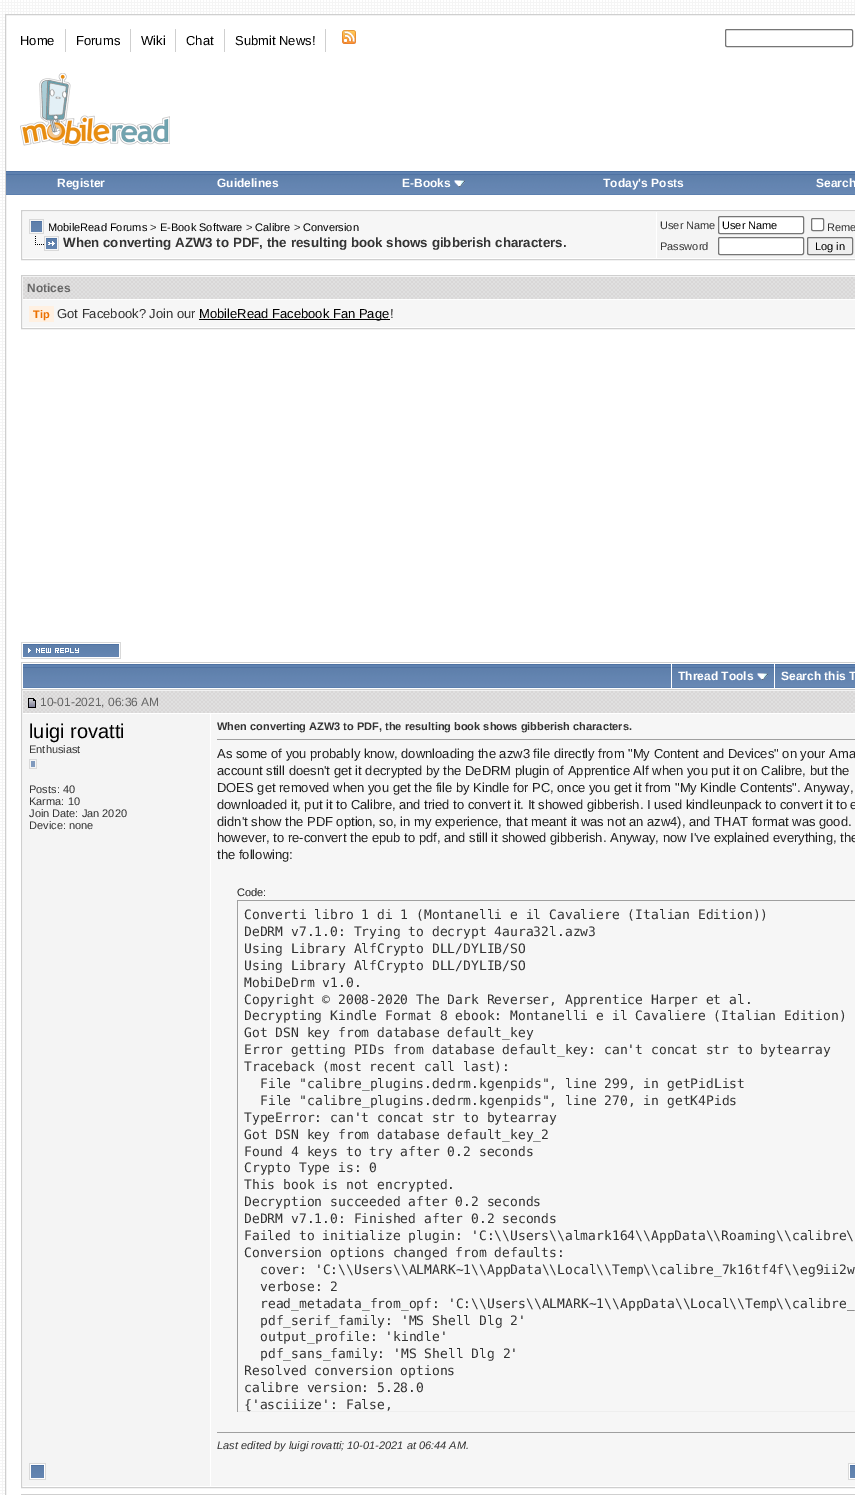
%!PS-Adobe-3.0
%%BoundingBox: 0 0 855 1495
%%LanguageLevel: 3
%%Pages: 1
%%EndComments
%%BeginProlog
/setink { 3 { 255 div 3 1 roll } repeat setrgbcolor } def
/usefont { [ exch dup neg 0 0 3 -1 roll 0 0 ] selectfont } def
/drawtext { setink usefont moveto show } def
/fillbox { setink rectfill } def
/rrect { 5 dict begin { /r /h /w /y /x } { exch def } forall
  x r add y moveto x w add y 2 copy h add r arct x w add y h add x 1 index r arct
  x y h add x y r arct x y 2 copy exch w add exch r arct closepath end } def
/drawimage { 5 dict begin { /h /w /y /x /name } { exch def } forall
  gsave x y translate w h scale
  w h 8 [w 0 0 h 0 0] name (r) file false 3 colorimage grestore end } def
%%EndProlog
%%BeginSetup
<< /PageSize [855 1495] >> setpagedevice
%%EndSetup
%%Page: 1 1
0 1495 translate 1 -1 scale
4 setmiterlimit
0 0 855 1495 255 255 255 fillbox
(assets/img1.rgb) 0 0 855 1495 drawimage
5.5 14.5 moveto 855.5 14.5 lineto 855.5 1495.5 lineto 5.5 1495.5 lineto closepath gsave fill grestore
207 207 207 setink
stroke
(Home) 20 45 /LiberationSans-Regular 13 0 0 0 drawtext
65 29 1 23 207 207 207 fillbox
(Forums) 76 45 /LiberationSans-Regular 13 0 0 0 drawtext
130 29 1 23 207 207 207 fillbox
(Wiki) 141 45 /LiberationSans-Regular 13 0 0 0 drawtext
175 29 1 23 207 207 207 fillbox
(Chat) 186 45 /LiberationSans-Regular 13 0 0 0 drawtext
224 29 1 23 207 207 207 fillbox
(Submit News!) 235 45 /LiberationSans-Regular 13 0 0 0 drawtext
325 29 1 23 207 207 207 fillbox
(assets/img2.rgb) 342 30 14 14 drawimage
118 118 118 setink
725.5 29.5 127 17 1.5 rrect stroke
(assets/img3.rgb) 20 73 150 73 drawimage
6 171 849 1 78 114 162 fillbox
(assets/img4.rgb) 6 172 150 23 drawimage
(Register) 57 187 /LiberationSans-Bold 12 255 255 255 drawtext
(assets/img5.rgb) 156 172 184 23 drawimage
(Guidelines) 217 187 /LiberationSans-Bold 12 255 255 255 drawtext
(assets/img6.rgb) 340 172 187 23 drawimage
(E-Books) 402 187 /LiberationSans-Bold 12 255 255 255 drawtext
(assets/img7.rgb) 454 180 11 7 drawimage
(assets/img8.rgb) 527 172 233 23 drawimage
(Today's Posts) 603 187 /LiberationSans-Bold 12 255 255 255 drawtext
(assets/img9.rgb) 760 172 95 23 drawimage
(Search) 816 187 /LiberationSans-Bold 12 255 255 255 drawtext
207 207 207 setink
21.5 210.5 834 49 rectstroke
23 212 633 46 246 246 246 fillbox
(assets/img10.rgb) 29 219 15 15 drawimage
(MobileRead Forums) 48 231 /LiberationSans-Regular 11 0 0 0 drawtext
(>) 150 231 /LiberationSans-Regular 11 51 51 51 drawtext
(E-Book Software) 160 231 /LiberationSans-Regular 11 0 0 0 drawtext
(>) 246 231 /LiberationSans-Regular 11 51 51 51 drawtext
(Calibre) 255 231 /LiberationSans-Regular 11 0 0 0 drawtext
(>) 294 231 /LiberationSans-Regular 11 51 51 51 drawtext
(Conversion) 303 231 /LiberationSans-Regular 11 0 0 0 drawtext
(assets/img11.rgb) 35 236 24 15 drawimage
(When converting AZW3 to PDF, the resulting book shows gibberish characters.) 63 247 /LiberationSans-Bold 13.35 51 51 51 drawtext
657 212 198 46 244 244 244 fillbox
(User Name) 660 229 /LiberationSans-Regular 11 51 51 51 drawtext
255 255 255 setink
718.5 216.5 85 17 1.5 rrect gsave fill grestore
118 118 118 setink
stroke
(User Name) 722 229 /LiberationSans-Regular 11 0 0 0 drawtext
255 255 255 setink
811.5 218.5 12 12 1.5 rrect gsave fill grestore
118 118 118 setink
stroke
(Reme) 827 231 /LiberationSans-Regular 11 51 51 51 drawtext
(Password) 660 250 /LiberationSans-Regular 11 51 51 51 drawtext
255 255 255 setink
718.5 237.5 85 17 1.5 rrect gsave fill grestore
118 118 118 setink
stroke
239 239 239 setink
807.5 237.5 45 17 1.5 rrect gsave fill grestore
118 118 118 setink
stroke
(Log in) 815 250 /LiberationSans-Regular 11 0 0 0 drawtext
207 207 207 setink
21.5 275.5 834 53 rectstroke
(assets/img12.rgb) 23 277 832 22 drawimage
(Notices) 27 292 /LiberationSans-Bold 12 102 102 102 drawtext
23 300 832 27 246 246 246 fillbox
29 306 25 16 255 240 225 fillbox
(Tip) 33 318 /LiberationSans-Bold 11 236 112 0 drawtext
(Got Facebook? Join our) 57 318 /LiberationSans-Regular 13 51 51 51 drawtext
199 319 191 1 0 0 0 fillbox
(MobileRead Facebook Fan Page) 199 318 /LiberationSans-Regular 13 0 0 0 drawtext
(!) 390 318 /LiberationSans-Regular 13 51 51 51 drawtext
(assets/img13.rgb) 21 642 100 17 drawimage
21 662 834 1 207 207 207 fillbox
21 662 1 27 207 207 207 fillbox
23 664 648 1 78 114 162 fillbox
(assets/img14.rgb) 23 665 648 23 drawimage
672 664 102 1 78 114 162 fillbox
(assets/img15.rgb) 672 665 102 23 drawimage
(Thread Tools) 678 680 /LiberationSans-Bold 12 255 255 255 drawtext
(assets/img16.rgb) 757 673 11 7 drawimage
775 664 80 1 78 114 162 fillbox
(assets/img17.rgb) 775 665 80 23 drawimage
(Search this T) 781 680 /LiberationSans-Bold 12 255 255 255 drawtext
207 207 207 setink
21.5 689.5 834 798 rectstroke
(assets/img18.rgb) 23 691 188 22 drawimage
(assets/img19.rgb) 28 698 8 10 drawimage
(10-01-2021, 06:36 AM) 40 706 /LiberationSans-Regular 12 102 102 102 drawtext
(assets/img20.rgb) 211 691 644 22 drawimage
23 714 187 772 244 244 244 fillbox
(luigi rovatti) 29 738 /LiberationSans-Regular 20 0 0 0 drawtext
(Enthusiast) 29 753 /LiberationSans-Regular 11 51 51 51 drawtext
(assets/img21.rgb) 29 759 8 10 drawimage
(Posts: 40) 29 793 /LiberationSans-Regular 11 51 51 51 drawtext
(Karma: 10) 29 805 /LiberationSans-Regular 11 51 51 51 drawtext
(Join Date: Jan 2020) 29 817 /LiberationSans-Regular 11 51 51 51 drawtext
(Device: none) 29 829 /LiberationSans-Regular 11 51 51 51 drawtext
211 714 644 772 246 246 246 fillbox
(When converting AZW3 to PDF, the resulting book shows gibberish characters.) 217 730 /LiberationSans-Bold 11 51 51 51 drawtext
217 739 638 1 159 159 159 fillbox
(As some of you probably know, downloading the azw3 file directly from "My Content and Devices" on your Ama) 217 758 /LiberationSans-Regular 13 32 32 32 drawtext
(account still doesn't get it decrypted by the DeDRM plugin of Apprentice Alf when you put it on Calibre, but the) 217 775 /LiberationSans-Regular 13 32 32 32 drawtext
(DOES get removed when you get the file by Kindle for PC, once you get it from "My Kindle Contents". Anyway,) 217 792 /LiberationSans-Regular 13 32 32 32 drawtext
(downloaded it, put it to Calibre, and tried to convert it. It showed gibberish. I used kindleunpack to convert it to e) 217 809 /LiberationSans-Regular 13 32 32 32 drawtext
(didn't show the PDF option, so, in my experience, that meant it was not an azw4\), and THAT format was good.) 217 826 /LiberationSans-Regular 13 32 32 32 drawtext
(however, to re-convert the epub to pdf, and still it showed gibberish. Anyway, now I've explained everything, the) 217 842 /LiberationSans-Regular 13 32 32 32 drawtext
(the following:) 217 859 /LiberationSans-Regular 13 32 32 32 drawtext
(Code:) 237 896 /LiberationSans-Regular 11 32 32 32 drawtext
237 900 618 1 159 159 159 fillbox
237 1411 618 1 238 238 238 fillbox
237 900 1 512 159 159 159 fillbox
(Converti libro 1 di 1 \(Montanelli e il Cavaliere \(Italian Edition\)\)) 244 919 /DejaVuSansMono-Regular 13 51 51 51 drawtext
(DeDRM v7.1.0: Trying to decrypt 4aura32l.azw3) 244 936 /DejaVuSansMono-Regular 13 51 51 51 drawtext
(Using Library AlfCrypto DLL/DYLIB/SO) 244 953 /DejaVuSansMono-Regular 13 51 51 51 drawtext
(Using Library AlfCrypto DLL/DYLIB/SO) 244 970 /DejaVuSansMono-Regular 13 51 51 51 drawtext
(MobiDeDrm v1.0.) 244 987 /DejaVuSansMono-Regular 13 51 51 51 drawtext
(Copyright © 2008-2020 The Dark Reverser, Apprentice Harper et al.) 244 1004 /DejaVuSansMono-Regular 13 51 51 51 drawtext
(Decrypting Kindle Format 8 ebook: Montanelli e il Cavaliere \(Italian Edition\)) 244 1020 /DejaVuSansMono-Regular 13 51 51 51 drawtext
(Got DSN key from database default_key) 244 1037 /DejaVuSansMono-Regular 13 51 51 51 drawtext
(Error getting PIDs from database default_key: can't concat str to bytearray) 244 1054 /DejaVuSansMono-Regular 13 51 51 51 drawtext
(Traceback \(most recent call last\):) 244 1071 /DejaVuSansMono-Regular 13 51 51 51 drawtext
(File "calibre_plugins.dedrm.kgenpids", line 299, in getPidList) 260 1088 /DejaVuSansMono-Regular 13 51 51 51 drawtext
(File "calibre_plugins.dedrm.kgenpids", line 270, in getK4Pids) 260 1105 /DejaVuSansMono-Regular 13 51 51 51 drawtext
(TypeError: can't concat str to bytearray) 244 1122 /DejaVuSansMono-Regular 13 51 51 51 drawtext
(Got DSN key from database default_key_2) 244 1139 /DejaVuSansMono-Regular 13 51 51 51 drawtext
(Found 4 keys to try after 0.2 seconds) 244 1156 /DejaVuSansMono-Regular 13 51 51 51 drawtext
(Crypto Type is: 0) 244 1172 /DejaVuSansMono-Regular 13 51 51 51 drawtext
(This book is not encrypted.) 244 1189 /DejaVuSansMono-Regular 13 51 51 51 drawtext
(Decryption succeeded after 0.2 seconds) 244 1206 /DejaVuSansMono-Regular 13 51 51 51 drawtext
(DeDRM v7.1.0: Finished after 0.2 seconds) 244 1223 /DejaVuSansMono-Regular 13 51 51 51 drawtext
(Failed to initialize plugin: 'C:\\\\Users\\\\almark164\\\\AppData\\\\Roaming\\\\calibre\\) 244 1240 /DejaVuSansMono-Regular 13 51 51 51 drawtext
(Conversion options changed from defaults:) 244 1257 /DejaVuSansMono-Regular 13 51 51 51 drawtext
(cover: 'C:\\\\Users\\\\ALMARK~1\\\\AppData\\\\Local\\\\Temp\\\\calibre_7k16tf4f\\\\eg9ii2w) 260 1274 /DejaVuSansMono-Regular 13 51 51 51 drawtext
(verbose: 2) 260 1291 /DejaVuSansMono-Regular 13 51 51 51 drawtext
(read_metadata_from_opf: 'C:\\\\Users\\\\ALMARK~1\\\\AppData\\\\Local\\\\Temp\\\\calibre_) 260 1308 /DejaVuSansMono-Regular 13 51 51 51 drawtext
(pdf_serif_family: 'MS Shell Dlg 2') 260 1325 /DejaVuSansMono-Regular 13 51 51 51 drawtext
(output_profile: 'kindle') 260 1341 /DejaVuSansMono-Regular 13 51 51 51 drawtext
(pdf_sans_family: 'MS Shell Dlg 2') 260 1358 /DejaVuSansMono-Regular 13 51 51 51 drawtext
(Resolved conversion options) 244 1375 /DejaVuSansMono-Regular 13 51 51 51 drawtext
(calibre version: 5.28.0) 244 1392 /DejaVuSansMono-Regular 13 51 51 51 drawtext
({'asciiize': False,) 244 1409 /DejaVuSansMono-Regular 13 51 51 51 drawtext
217 1432 638 1 159 159 159 fillbox
(Last edited by luigi rovatti; 10-01-2021 at 06:44 AM.) 217 1449 /LiberationSans-Italic 11 51 51 51 drawtext
(assets/img22.rgb) 29 1463 17 17 drawimage
(assets/img23.rgb) 848 1463 7 17 drawimage
207 207 207 setink
21.5 1494.5 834 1 rectstroke
showpage
%%EOF
